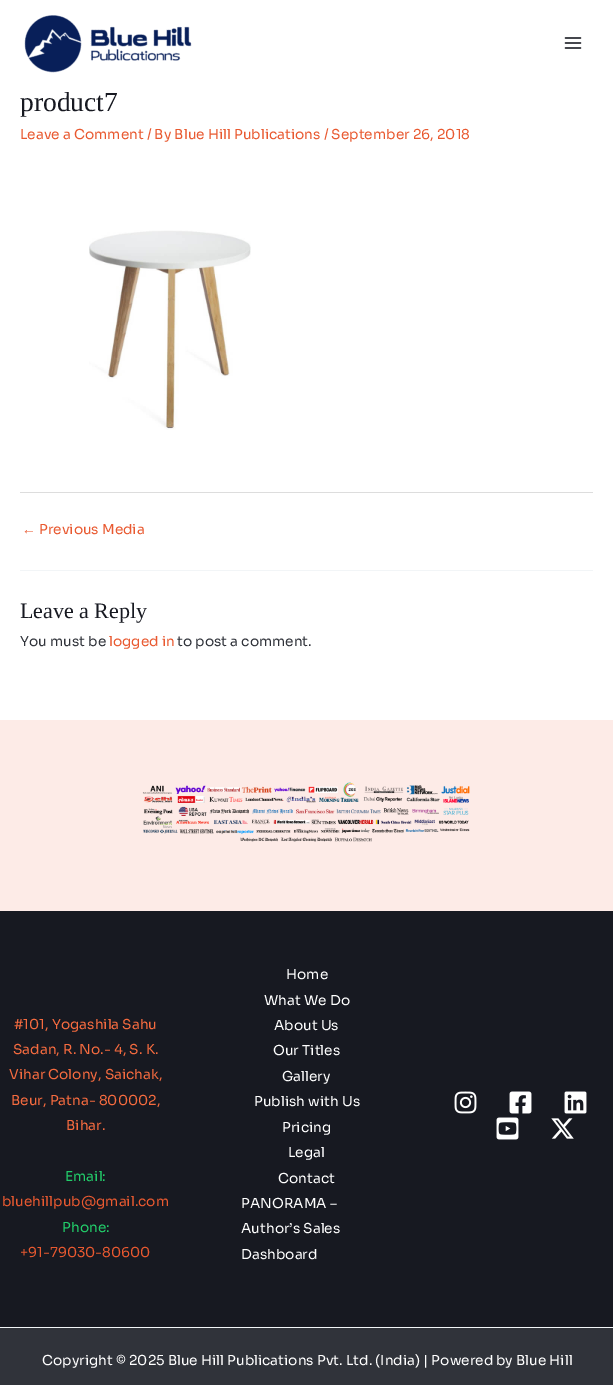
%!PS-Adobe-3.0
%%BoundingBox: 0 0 613 1385
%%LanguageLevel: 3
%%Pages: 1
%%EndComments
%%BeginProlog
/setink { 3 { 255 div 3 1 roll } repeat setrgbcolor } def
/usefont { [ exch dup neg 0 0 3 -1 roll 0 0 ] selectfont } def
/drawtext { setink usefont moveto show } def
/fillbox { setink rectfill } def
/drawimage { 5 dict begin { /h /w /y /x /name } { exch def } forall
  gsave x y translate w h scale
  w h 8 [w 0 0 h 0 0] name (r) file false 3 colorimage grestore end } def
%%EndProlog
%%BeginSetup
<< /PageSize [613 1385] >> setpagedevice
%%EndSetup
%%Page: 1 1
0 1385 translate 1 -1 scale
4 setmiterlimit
0 0 613 1385 255 255 255 fillbox
(assets/img1.rgb) 24 15 168 58 drawimage
(assets/img2.rgb) 564 37 18 12 drawimage
(product7) 20 111 /LiberationSerif-Regular 27.5 23 25 33 drawtext
(Leave a Comment / By Blue Hill Publications / September 26, 2018) 20 139 /Sora-Regular 13.7 233 89 48 drawtext
(assets/img3.rgb) 89 230 162 200 drawimage
20 492 573 1 221 221 221 fillbox
(←) 22 534 /LiberationSans-Regular 13.7 233 89 48 drawtext
(Previous Media) 39 534 /Sora-Regular 13.7 233 89 48 drawtext
20 570 573 1 242 245 247 fillbox
(Leave a Reply) 20 618 /LiberationSerif-Regular 22 23 25 33 drawtext
(You must be) 20 646 /Sora-Regular 13.7 48 51 58 drawtext
(logged in) 109 646 /Sora-Regular 13.7 233 89 48 drawtext
(to post a comment.) 177 646 /Sora-Regular 13.7 48 51 58 drawtext
0 720 613 191 253 235 231 fillbox
(assets/img4.rgb) 142 782 328 60 drawimage
0 911 613 416 23 25 33 fillbox
(#101, Yogashila Sahu) 14 1029 /Sora-Regular 13.7 245 107 63 drawtext
(Sadan, R. No.- 4, S. K.) 13 1054 /Sora-Regular 13.7 245 107 63 drawtext
(Vihar Colony, Saichak,) 9 1079 /Sora-Regular 13.7 245 107 63 drawtext
(Beur, Patna- 800002,) 11 1105 /Sora-Regular 13.7 245 107 63 drawtext
(Bihar.) 66 1130 /Sora-Regular 13.7 245 107 63 drawtext
(Email:) 65 1181 /Sora-Regular 13.7 34 205 106 drawtext
(bluehillpub@gmail.com) 2 1206 /Sora-Regular 13.7 233 89 48 drawtext
(Phone:) 62 1232 /Sora-Regular 13.7 34 205 106 drawtext
(+91-79030-80600) 20 1257 /Sora-Regular 13.7 233 89 48 drawtext
(Home) 286 979 /Sora-Regular 13.7 255 255 255 drawtext
(What We Do) 264 1005 /Sora-Regular 13.7 255 255 255 drawtext
(About Us) 274 1030 /Sora-Regular 13.7 255 255 255 drawtext
(Our Titles) 273 1055 /Sora-Regular 13.7 255 255 255 drawtext
(Gallery) 282 1081 /Sora-Regular 13.7 255 255 255 drawtext
(Publish with Us) 254 1106 /Sora-Regular 13.7 255 255 255 drawtext
(Pricing) 282 1132 /Sora-Regular 13.7 255 255 255 drawtext
(Legal) 288 1157 /Sora-Regular 13.7 255 255 255 drawtext
(Contact) 278 1183 /Sora-Regular 13.7 255 255 255 drawtext
(PANORAMA –) 241 1208 /Sora-Regular 13.7 255 255 255 drawtext
(Author’s Sales) 241 1233 /Sora-Regular 13.7 255 255 255 drawtext
(Dashboard) 241 1259 /Sora-Regular 13.7 255 255 255 drawtext
(assets/img5.rgb) 454 1091 23 23 drawimage
(assets/img6.rgb) 509 1091 23 23 drawimage
(assets/img7.rgb) 564 1091 23 23 drawimage
(assets/img8.rgb) 496 1117 23 23 drawimage
(assets/img9.rgb) 551 1118 23 21 drawimage
0 1328 613 57 48 51 58 fillbox
0 1327 613 1 242 245 247 fillbox
(Copyright © 2025 Blue Hill Publications Pvt. Ltd. \(India\) | Powered by Blue Hill) 42 1365 /Sora-Regular 13.7 255 255 255 drawtext
showpage
%%EOF
